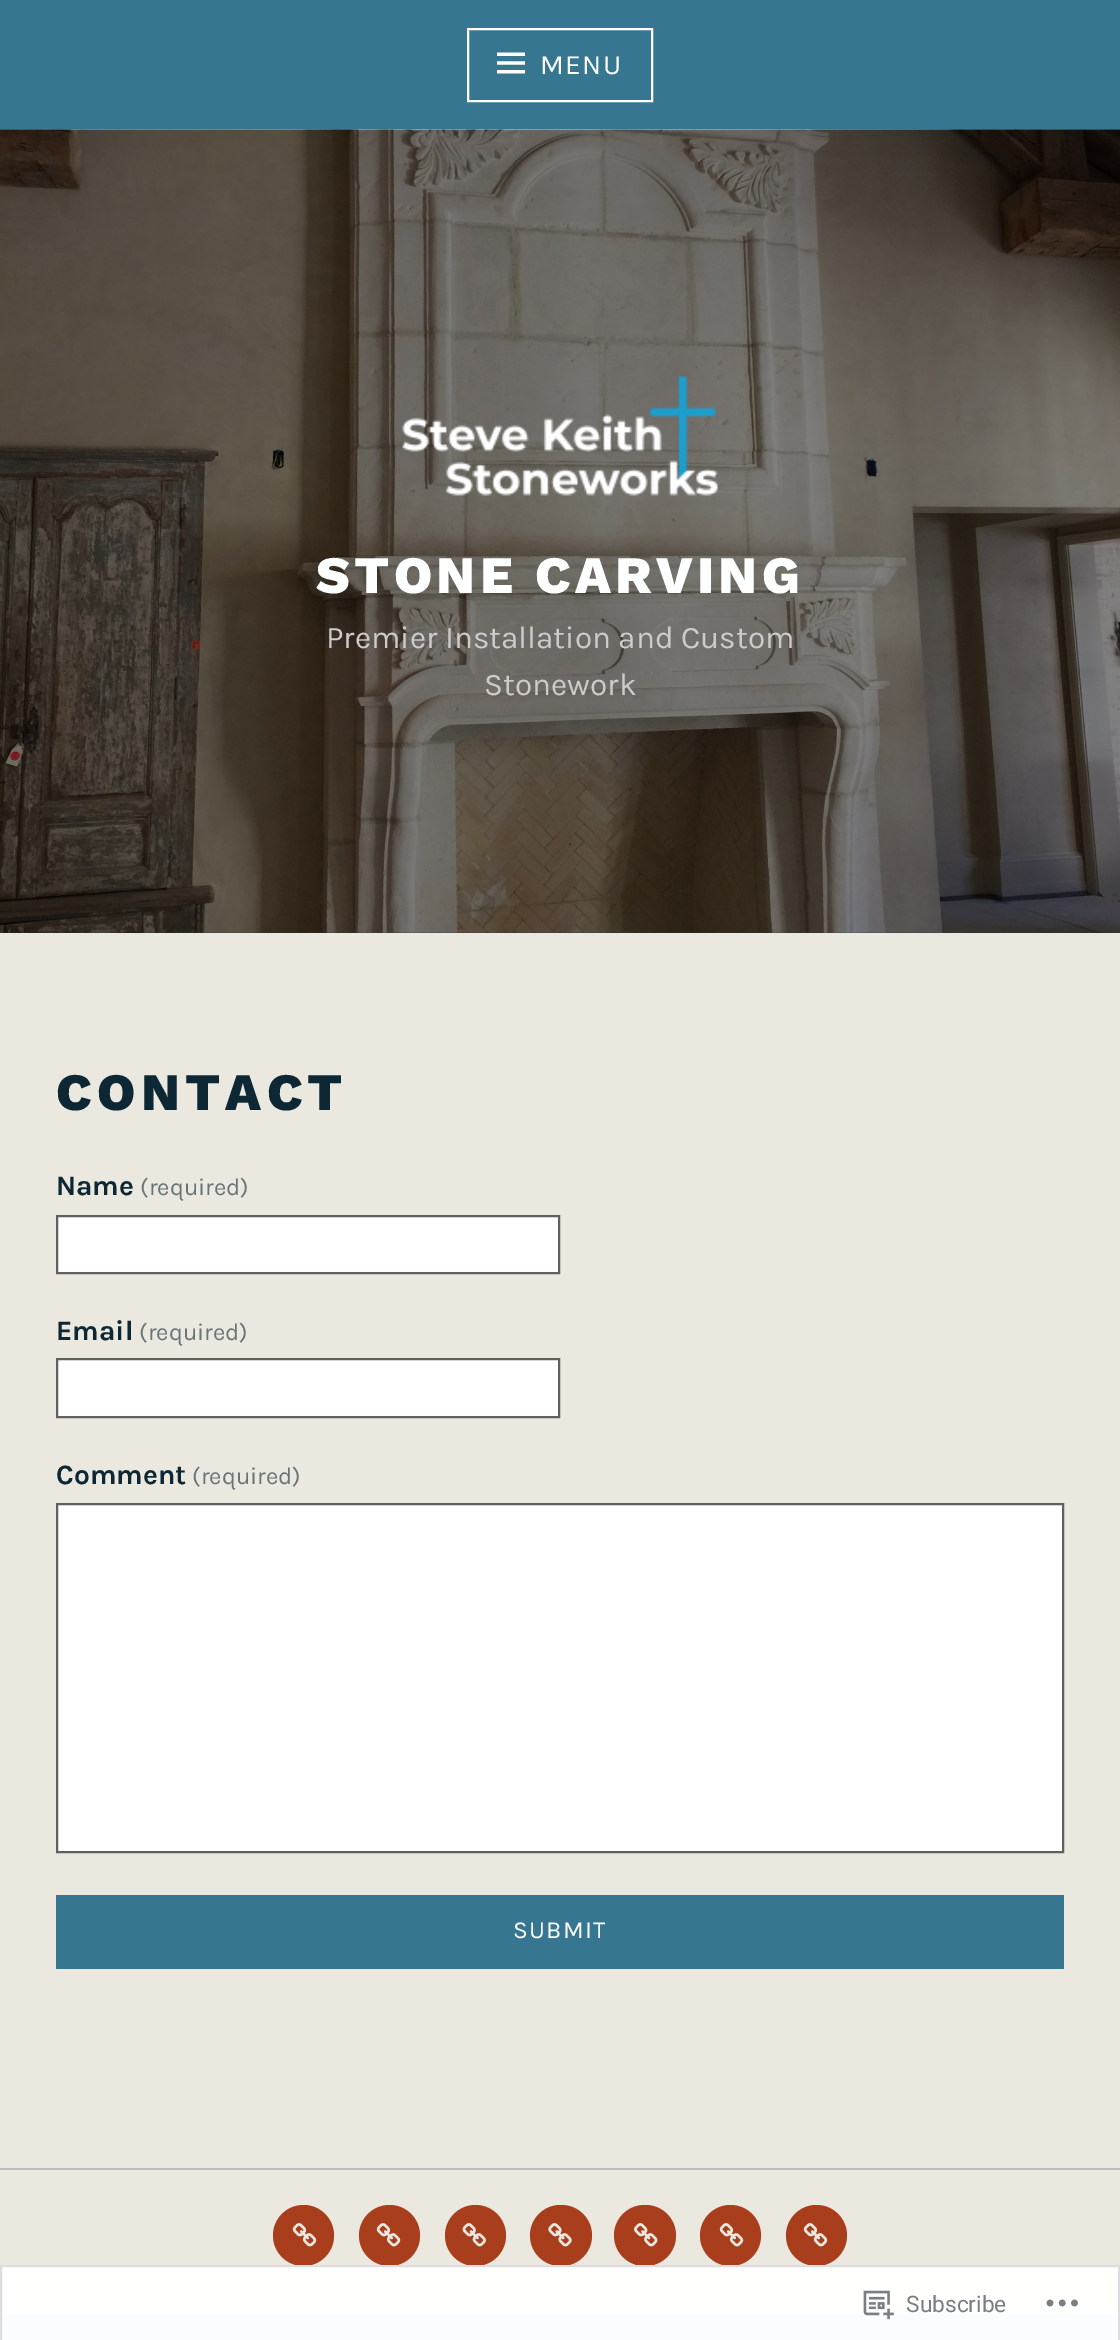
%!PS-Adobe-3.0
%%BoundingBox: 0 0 1120 2340
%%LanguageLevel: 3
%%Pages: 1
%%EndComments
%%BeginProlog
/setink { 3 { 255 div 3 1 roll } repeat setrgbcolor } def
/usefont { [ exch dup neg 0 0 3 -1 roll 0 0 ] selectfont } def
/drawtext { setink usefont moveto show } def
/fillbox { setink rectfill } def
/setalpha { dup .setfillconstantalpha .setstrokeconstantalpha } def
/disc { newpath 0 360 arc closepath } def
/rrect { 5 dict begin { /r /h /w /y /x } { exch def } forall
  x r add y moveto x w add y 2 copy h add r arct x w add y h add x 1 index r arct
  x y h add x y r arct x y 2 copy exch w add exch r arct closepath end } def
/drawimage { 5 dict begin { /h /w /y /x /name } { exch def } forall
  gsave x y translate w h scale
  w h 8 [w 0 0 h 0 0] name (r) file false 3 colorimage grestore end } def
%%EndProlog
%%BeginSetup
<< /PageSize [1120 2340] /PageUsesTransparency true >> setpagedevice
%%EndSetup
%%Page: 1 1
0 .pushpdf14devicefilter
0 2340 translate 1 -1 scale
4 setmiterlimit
0 0 1120 2340 235 232 223 fillbox
0 0 1120 933 54 118 144 fillbox
255 255 255 setink
2 setlinewidth
468 29 184 72 rectstroke
(assets/img1.rgb) 497 52 28 22 drawimage
/Karla-Regular 28 usefont
254 255 255 setink
540 74 moveto 1.5 0 (MENU) ashow
(assets/img2.rgb) 0 129 1120 804 drawimage
(assets/img3.rgb) 402 375 316 121 drawimage
/WorkSans-ExtraBold 52.5 usefont
316 593 moveto 4.25 0 (STONE CARVING) ashow
(Premier Installation and Custom) 326 648 /Karla-Regular 31.5 204 204 204 drawtext
(Stonework) 484 695 /Karla-Regular 31.5 204 204 204 drawtext
/WorkSans-ExtraBold 52.5 usefont
13 40 52 setink
56 1110 moveto 5.25 0 (CONTACT) ashow
(Name) 56 1195 /Karla-Bold 28 13 40 52 drawtext
(\(required\)) 140 1195 /Karla-Regular 24 102 117 120 drawtext
255 255 255 setink
57 1216 moveto 559 1216 lineto 559 1273 lineto 57 1273 lineto closepath gsave fill grestore
96 96 96 setink
stroke
(Email) 56 1340 /Karla-Bold 28 13 40 52 drawtext
(\(required\)) 139 1340 /Karla-Regular 24 102 117 120 drawtext
255 255 255 setink
57 1359 moveto 559 1359 lineto 559 1417 lineto 57 1417 lineto closepath gsave fill grestore
96 96 96 setink
stroke
(Comment) 56 1484 /Karla-Bold 28 13 40 52 drawtext
(\(required\)) 192 1484 /Karla-Regular 24 102 117 120 drawtext
255 255 255 setink
57 1504 moveto 1063 1504 lineto 1063 1852 lineto 57 1852 lineto closepath gsave fill grestore
96 96 96 setink
stroke
56 1895 1008 74 54 118 144 fillbox
/Karla-Regular 24.5 usefont
254 255 255 setink
513 1938 moveto 1.25 0 (SUBMIT) ashow
0 2168 1120 2 187 187 187 fillbox
169 62 29 setink
303.5 2235.5 30.5 disc fill
(assets/img4.rgb) 292 2223 25 24 drawimage
389.5 2235.5 30.5 disc fill
(assets/img4.rgb) 376 2223 25 24 drawimage
475.5 2235.5 30.5 disc fill
(assets/img5.rgb) 462 2223 24 24 drawimage
530 2205 62 61 30.5 rrect fill
(assets/img6.rgb) 548 2223 24 24 drawimage
614 2205 62 61 30.5 rrect fill
(assets/img7.rgb) 634 2223 24 24 drawimage
730.5 2235.5 30.5 disc fill
(assets/img4.rgb) 719 2223 25 24 drawimage
816.5 2235.5 30.5 disc fill
(assets/img4.rgb) 803 2223 25 24 drawimage
0 2314 1120 26 54 118 144 fillbox
0.98 setalpha
0 2265 1120 75 255 255 255 fillbox
220 220 222 setink
1 2266 1118 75 rectstroke
1 setalpha
(assets/img8.rgb) 863 2290 31 30 drawimage
(Subscribe) 906 2312 /Roboto-Regular 22.75 122 126 132 drawtext
(assets/img9.rgb) 1046 2299 32 8 drawimage
.poppdf14devicefilter showpage
%%EOF
